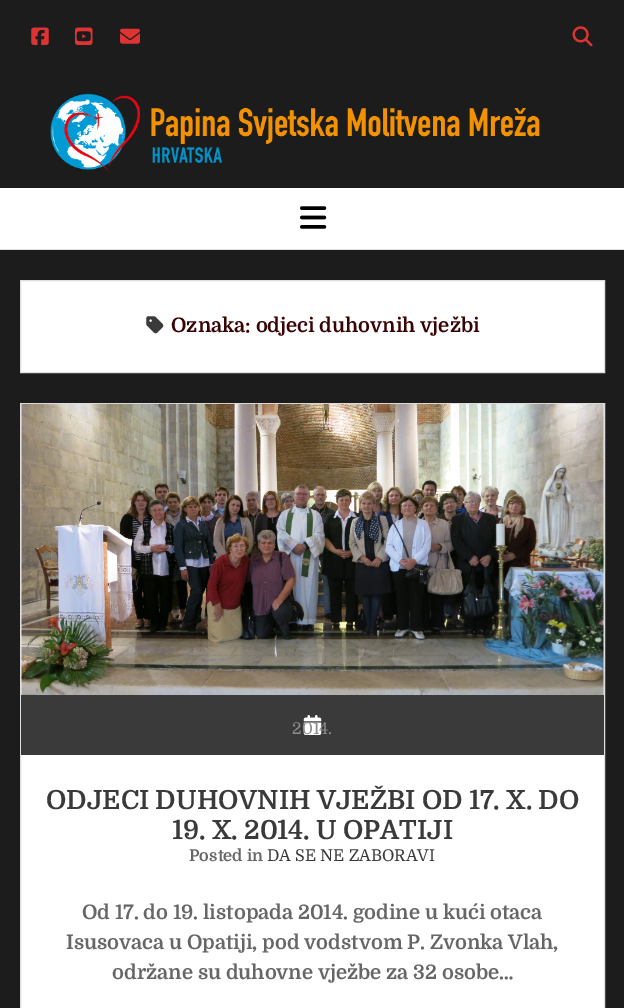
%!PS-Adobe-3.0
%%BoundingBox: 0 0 624 1008
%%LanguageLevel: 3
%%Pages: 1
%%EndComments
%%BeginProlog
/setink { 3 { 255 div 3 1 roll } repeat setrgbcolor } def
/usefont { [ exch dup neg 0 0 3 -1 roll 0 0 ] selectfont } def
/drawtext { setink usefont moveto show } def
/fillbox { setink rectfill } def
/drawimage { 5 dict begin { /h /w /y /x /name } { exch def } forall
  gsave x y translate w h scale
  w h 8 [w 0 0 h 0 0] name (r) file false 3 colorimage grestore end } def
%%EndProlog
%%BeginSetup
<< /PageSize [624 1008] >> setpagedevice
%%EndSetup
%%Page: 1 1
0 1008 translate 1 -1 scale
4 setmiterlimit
0 0 624 1008 28 28 28 fillbox
(assets/img1.rgb) 31 27 18 18 drawimage
(assets/img2.rgb) 75 27 18 18 drawimage
(assets/img3.rgb) 120 28 20 16 drawimage
(assets/img4.rgb) 572 26 21 21 drawimage
(assets/img5.rgb) 50 93 490 79 drawimage
0 188 624 61 255 255 255 fillbox
0 249 624 1 222 222 222 fillbox
(assets/img6.rgb) 300 206 27 23 drawimage
255 255 255 setink
20.5 280.5 moveto 604.5 280.5 lineto 604.5 372.5 lineto 20.5 372.5 lineto closepath gsave fill grestore
222 222 222 setink
stroke
(assets/img7.rgb) 146 316 18 18 drawimage
(Oznaka: odjeci duhovnih vježbi) 171 332 /Domine-Bold 20 58 3 3 drawtext
255 255 255 setink
20.5 403.5 moveto 604.5 403.5 lineto 604.5 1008.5 lineto 20.5 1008.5 lineto closepath gsave fill grestore
222 222 222 setink
stroke
(assets/img8.rgb) 21 403 583 292 drawimage
21 695 583 60 58 58 58 fillbox
(assets/img9.rgb) 303 715 19 20 drawimage
(2014.) 292 734 /Domine-Regular 16.25 142 142 142 drawtext
(ODJECI DUHOVNIH VJEŽBI OD 17. X. DO) 46 809 /Domine-Bold 26.25 58 58 58 drawtext
(19. X. 2014. U OPATIJI) 172 839 /Domine-Bold 26.25 58 58 58 drawtext
(Posted in) 189 861 /Domine-Bold 16.25 102 102 102 drawtext
(DA SE NE ZABORAVI) 267 861 /Domine-Regular 16.25 58 58 58 drawtext
(Od 17. do 19. listopada 2014. godine u kući otaca) 82 919 /Domine-Bold 20 102 102 102 drawtext
(Isusovaca u Opatiji, pod vodstvom P. Zvonka Vlah,) 66 949 /Domine-Bold 20 102 102 102 drawtext
(održane su duhovne vježbe za 32 osobe…) 112 979 /Domine-Bold 20 102 102 102 drawtext
showpage
%%EOF
